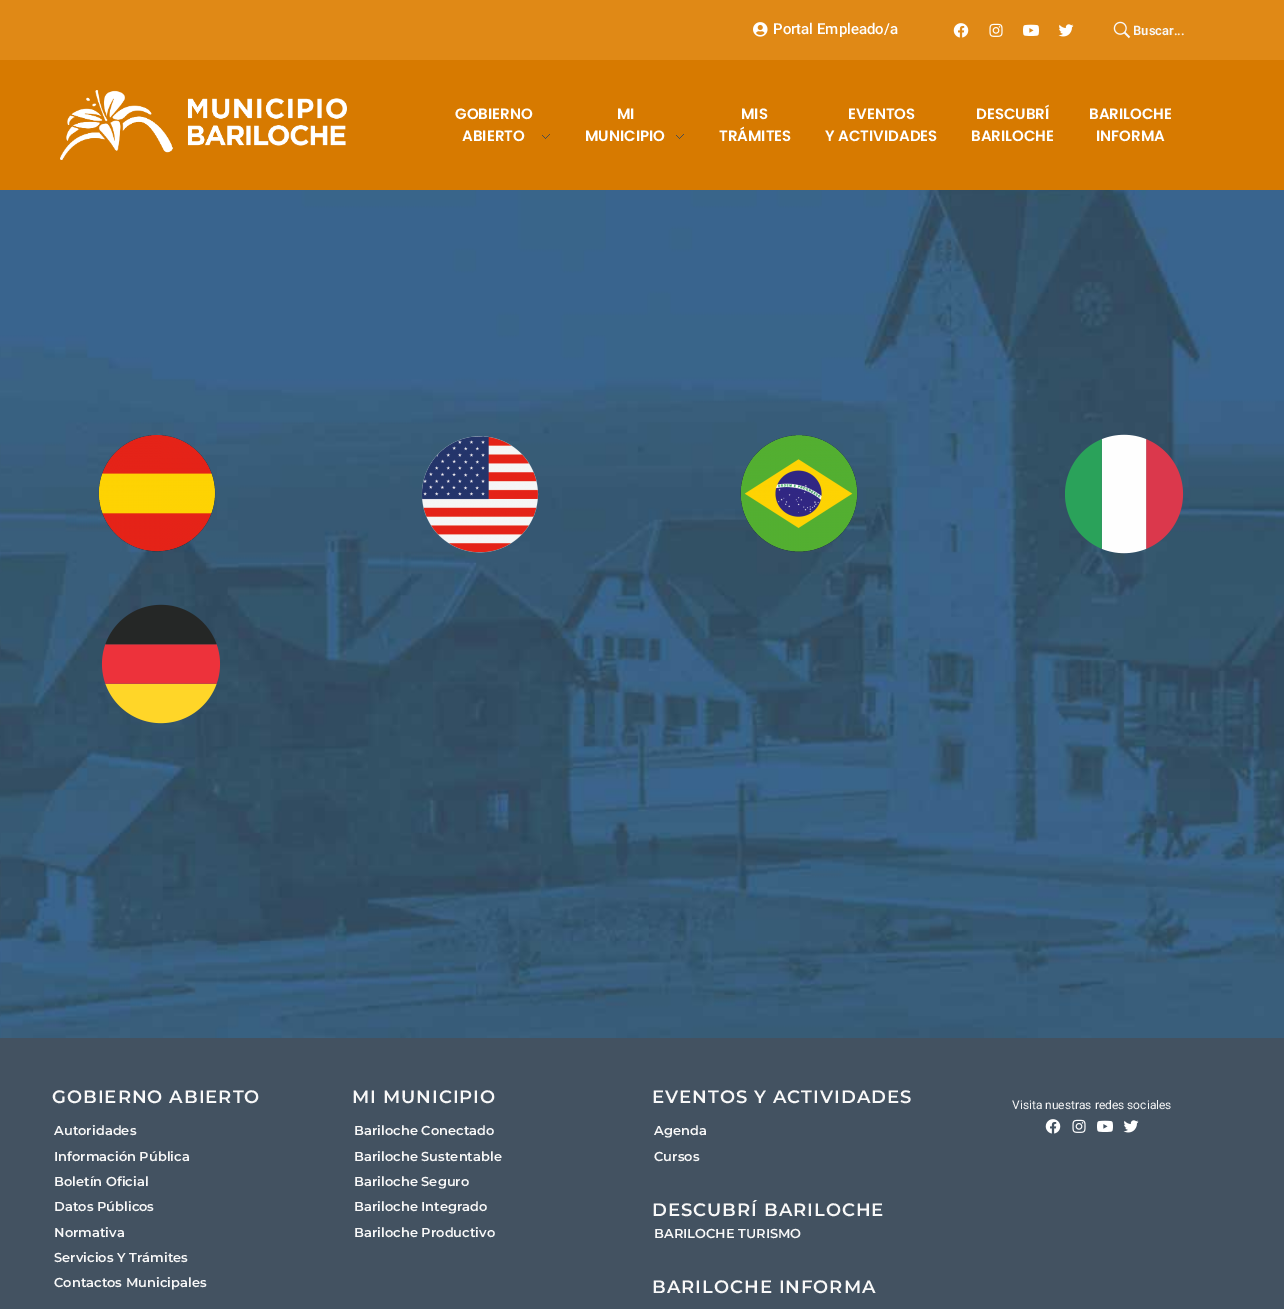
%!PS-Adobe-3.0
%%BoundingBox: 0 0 1284 1309
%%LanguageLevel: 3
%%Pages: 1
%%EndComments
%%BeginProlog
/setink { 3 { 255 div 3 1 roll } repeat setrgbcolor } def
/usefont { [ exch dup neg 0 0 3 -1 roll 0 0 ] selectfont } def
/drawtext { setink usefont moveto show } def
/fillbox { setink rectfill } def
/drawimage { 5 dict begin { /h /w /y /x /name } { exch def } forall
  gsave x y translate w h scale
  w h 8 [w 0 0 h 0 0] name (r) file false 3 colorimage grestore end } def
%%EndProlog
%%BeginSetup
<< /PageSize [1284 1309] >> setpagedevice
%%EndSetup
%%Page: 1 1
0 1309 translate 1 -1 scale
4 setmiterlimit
0 0 1284 1309 67 82 97 fillbox
0 0 1284 60 224 137 22 fillbox
(assets/img1.rgb) 753 22 15 15 drawimage
(Portal Empleado/a) 773 34 /Roboto-Medium 15 255 255 255 drawtext
(assets/img2.rgb) 953 23 16 15 drawimage
(assets/img3.rgb) 989 23 14 14 drawimage
(assets/img4.rgb) 1023 24 16 12 drawimage
(assets/img5.rgb) 1058 24 16 13 drawimage
(assets/img6.rgb) 1113 21 18 18 drawimage
(Buscar...) 1133 35 /Roboto-SemiBold 13 248 248 248 drawtext
0 60 1284 130 215 122 0 fillbox
(assets/img7.rgb) 60 90 287 70 drawimage
(GOBIERNO) 455 119 /Poppins-SemiBold 15 255 255 255 drawtext
(ABIERTO) 462 141 /Poppins-SemiBold 15 255 255 255 drawtext
(assets/img8.rgb) 542 134 8 5 drawimage
(MI) 617 119 /Poppins-SemiBold 15 255 255 255 drawtext
(MUNICIPIO) 585 141 /Poppins-SemiBold 15 255 255 255 drawtext
(assets/img8.rgb) 676 134 8 5 drawimage
(MIS) 741 119 /Poppins-SemiBold 15 255 255 255 drawtext
(TRÁMITES) 719 141 /Poppins-SemiBold 15 255 255 255 drawtext
(EVENTOS) 848 119 /Poppins-SemiBold 15 255 255 255 drawtext
(Y ACTIVIDADES) 825 141 /Poppins-SemiBold 15 255 255 255 drawtext
(DESCUBRÍ) 976 119 /Poppins-SemiBold 15 255 255 255 drawtext
(BARILOCHE) 971 141 /Poppins-SemiBold 15 255 255 255 drawtext
(BARILOCHE) 1089 119 /Poppins-SemiBold 15 255 255 255 drawtext
(INFORMA) 1096 141 /Poppins-SemiBold 15 255 255 255 drawtext
(assets/img9.rgb) 0 190 1284 848 drawimage
(assets/img10.rgb) 98 435 118 117 drawimage
(assets/img11.rgb) 101 604 120 120 drawimage
(assets/img12.rgb) 421 436 118 117 drawimage
(assets/img13.rgb) 740 435 118 117 drawimage
(assets/img14.rgb) 1065 434 119 120 drawimage
/Montserrat-SemiBold 18 usefont
248 248 248 setink
52 1103 moveto 1 0 (GOBIERNO ABIERTO) ashow
(Autoridades) 54 1135 /Montserrat-SemiBold 13 248 248 248 drawtext
(Información Pública) 54 1161 /Montserrat-SemiBold 13 248 248 248 drawtext
(Boletín Oficial) 54 1186 /Montserrat-SemiBold 13 248 248 248 drawtext
(Datos Públicos) 54 1211 /Montserrat-SemiBold 13 248 248 248 drawtext
(Normativa) 54 1237 /Montserrat-SemiBold 13 248 248 248 drawtext
(Servicios Y Trámites) 54 1262 /Montserrat-SemiBold 13 248 248 248 drawtext
(Contactos Municipales) 54 1287 /Montserrat-SemiBold 13 248 248 248 drawtext
/Montserrat-SemiBold 18 usefont
352 1103 moveto 1 0 (MI MUNICIPIO) ashow
(Bariloche Conectado) 354 1135 /Montserrat-SemiBold 13 248 248 248 drawtext
(Bariloche Sustentable) 354 1161 /Montserrat-SemiBold 13 248 248 248 drawtext
(Bariloche Seguro) 354 1186 /Montserrat-SemiBold 13 248 248 248 drawtext
(Bariloche Integrado) 354 1211 /Montserrat-SemiBold 13 248 248 248 drawtext
(Bariloche Productivo) 354 1237 /Montserrat-SemiBold 13 248 248 248 drawtext
/Montserrat-SemiBold 18 usefont
652 1103 moveto 1 0 (EVENTOS Y ACTIVIDADES) ashow
(Agenda) 654 1135 /Montserrat-SemiBold 13 248 248 248 drawtext
(Cursos) 654 1161 /Montserrat-SemiBold 13 248 248 248 drawtext
/Montserrat-SemiBold 18 usefont
652 1216 moveto 1 0 (DESCUBRÍ BARILOCHE) ashow
(BARILOCHE TURISMO) 654 1238 /Montserrat-SemiBold 13 248 248 248 drawtext
/Montserrat-SemiBold 18 usefont
652 1293 moveto 1 0 (BARILOCHE INFORMA) ashow
(Visita nuestras redes sociales) 1012 1109 /Roboto-Regular 12 248 248 248 drawtext
(assets/img15.rgb) 1045 1119 16 15 drawimage
(assets/img16.rgb) 1072 1119 14 14 drawimage
(assets/img17.rgb) 1097 1120 16 12 drawimage
(assets/img18.rgb) 1123 1120 16 13 drawimage
showpage
%%EOF
